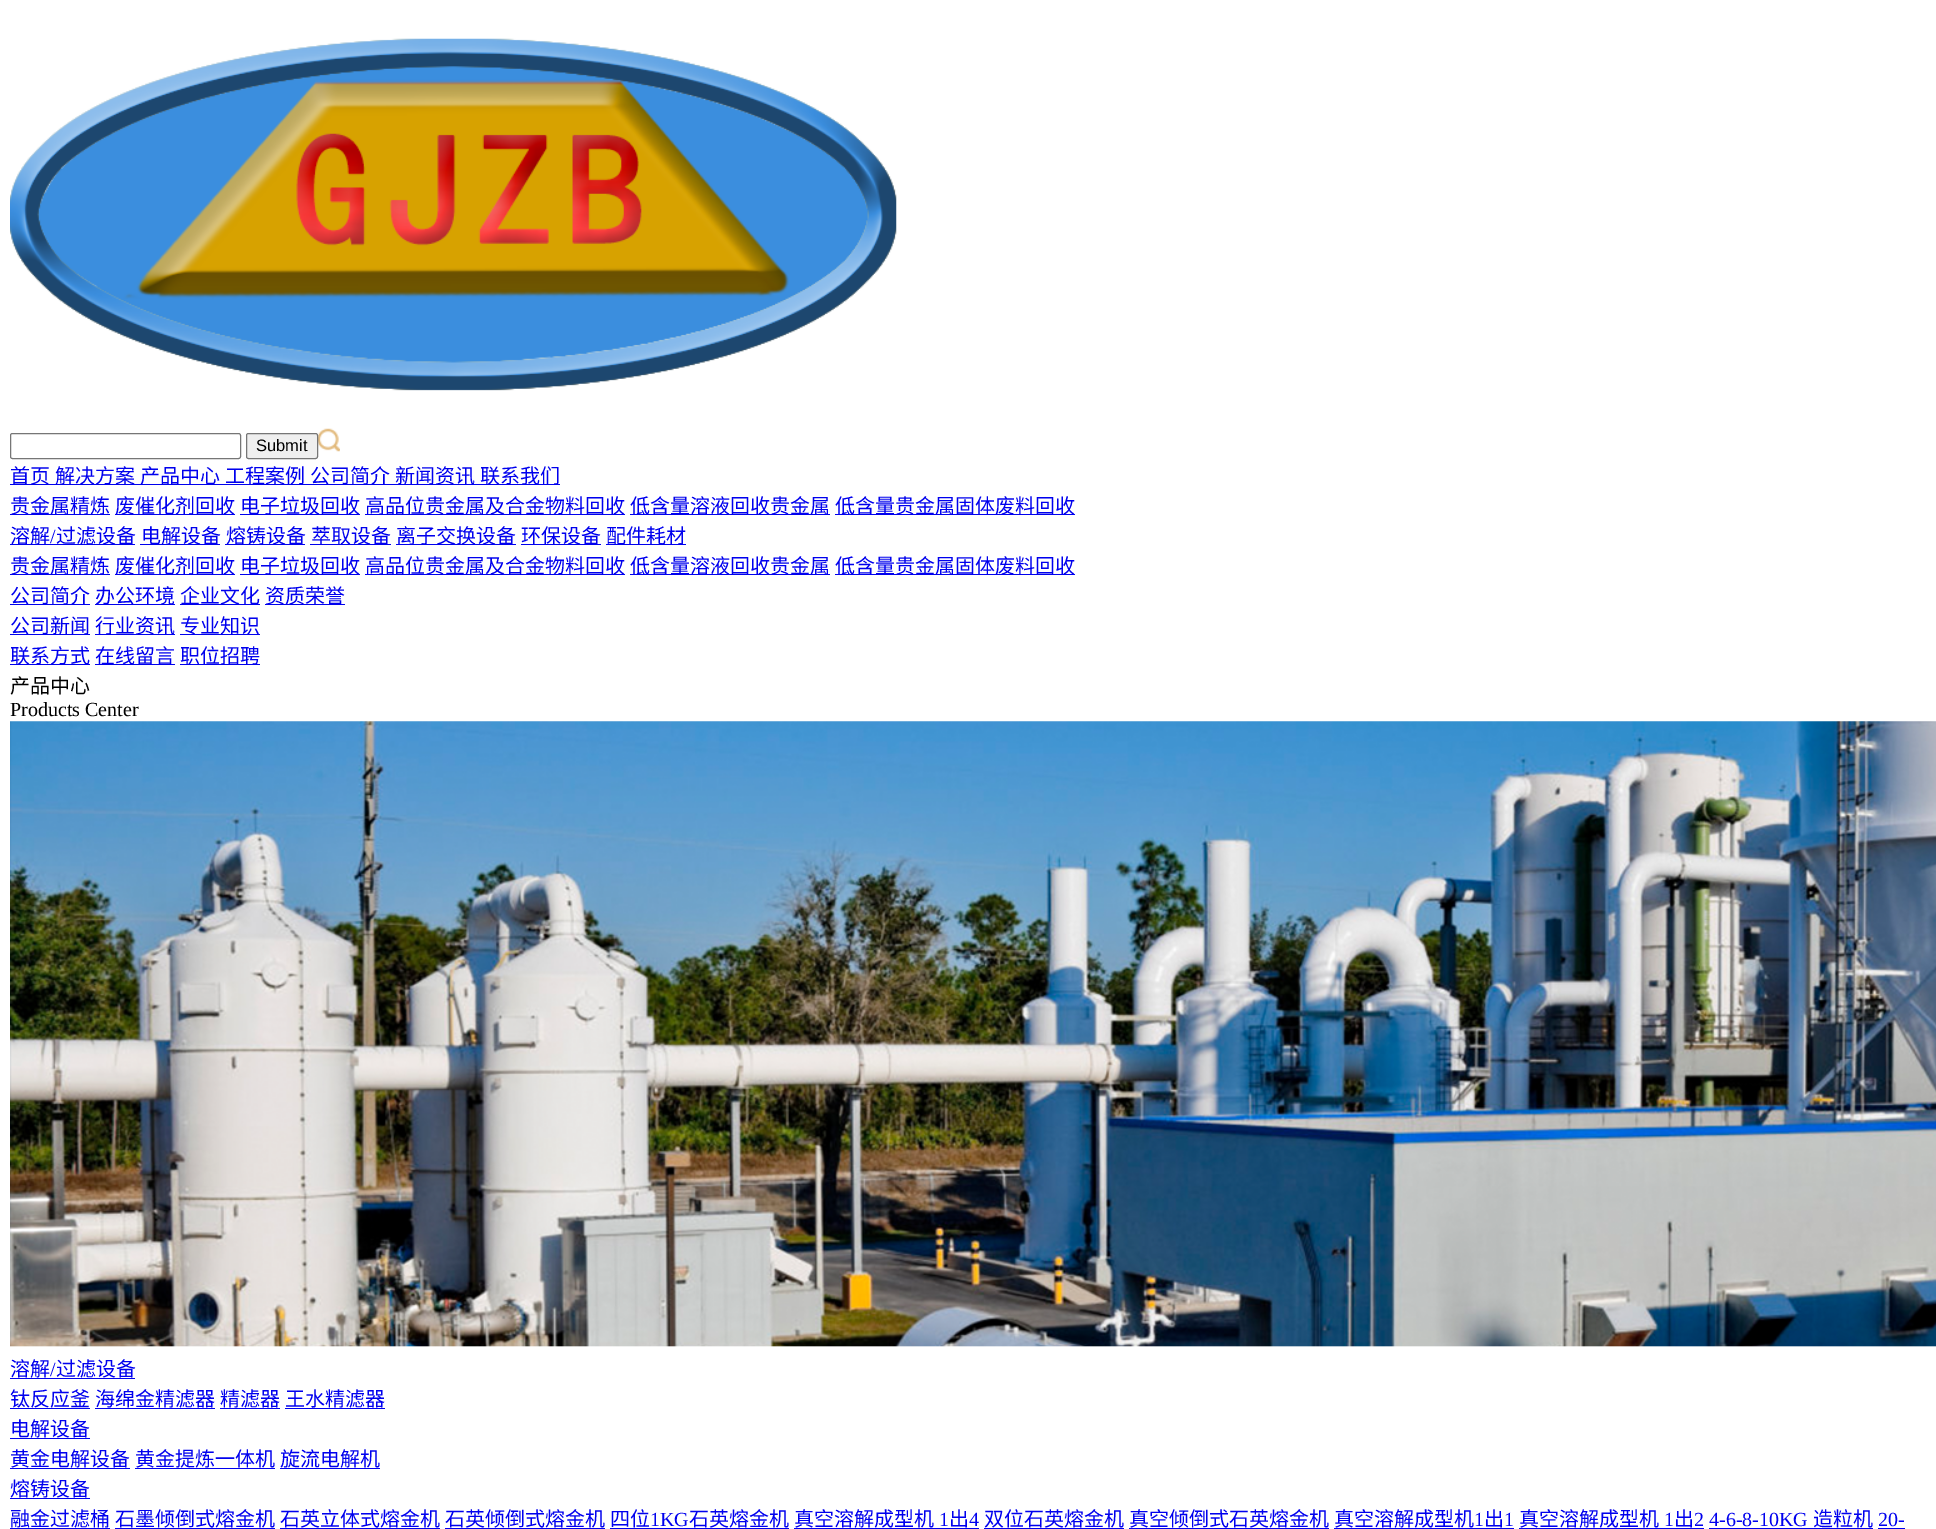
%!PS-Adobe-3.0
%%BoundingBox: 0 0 1936 1529
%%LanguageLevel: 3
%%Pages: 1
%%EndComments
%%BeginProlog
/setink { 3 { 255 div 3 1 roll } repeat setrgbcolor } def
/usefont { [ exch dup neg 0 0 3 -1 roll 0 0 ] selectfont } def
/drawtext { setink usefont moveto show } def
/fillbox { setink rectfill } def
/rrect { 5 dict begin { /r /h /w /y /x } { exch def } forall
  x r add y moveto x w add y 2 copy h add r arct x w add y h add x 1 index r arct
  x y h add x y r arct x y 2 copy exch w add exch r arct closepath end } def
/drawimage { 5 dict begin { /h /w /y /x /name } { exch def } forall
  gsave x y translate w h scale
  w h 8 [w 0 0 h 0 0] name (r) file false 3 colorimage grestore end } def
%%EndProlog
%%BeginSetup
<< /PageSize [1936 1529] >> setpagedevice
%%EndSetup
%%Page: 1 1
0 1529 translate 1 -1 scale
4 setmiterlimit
0 0 1936 1529 255 255 255 fillbox
(assets/img1.rgb) 10 38 887 353 drawimage
118 118 118 setink
10.5 433.5 230 25 2 rrect stroke
(assets/img2.rgb) 317 428 23 24 drawimage
239 239 239 setink
246.5 433.5 71 25 2 rrect gsave fill grestore
118 118 118 setink
stroke
(Submit) 256 451 /LiberationSans-Regular 16.5 0 0 0 drawtext
10 484 550 1 0 0 238 fillbox
(首页) 10 483 /NotoSansCJKSC-Regular 20 0 0 238 drawtext
(解决方案) 55 483 /NotoSansCJKSC-Regular 20 0 0 238 drawtext
(产品中心) 140 483 /NotoSansCJKSC-Regular 20 0 0 238 drawtext
(工程案例) 225 483 /NotoSansCJKSC-Regular 20 0 0 238 drawtext
(公司简介) 310 483 /NotoSansCJKSC-Regular 20 0 0 238 drawtext
(新闻资讯) 395 483 /NotoSansCJKSC-Regular 20 0 0 238 drawtext
(联系我们) 480 483 /NotoSansCJKSC-Regular 20 0 0 238 drawtext
10 514 100 1 0 0 238 fillbox
(贵金属精炼) 10 513 /NotoSansCJKSC-Regular 20 0 0 238 drawtext
115 514 120 1 0 0 238 fillbox
(废催化剂回收) 115 513 /NotoSansCJKSC-Regular 20 0 0 238 drawtext
240 514 120 1 0 0 238 fillbox
(电子垃圾回收) 240 513 /NotoSansCJKSC-Regular 20 0 0 238 drawtext
365 514 260 1 0 0 238 fillbox
(高品位贵金属及合金物料回收) 365 513 /NotoSansCJKSC-Regular 20 0 0 238 drawtext
630 514 200 1 0 0 238 fillbox
(低含量溶液回收贵金属) 630 513 /NotoSansCJKSC-Regular 20 0 0 238 drawtext
835 514 240 1 0 0 238 fillbox
(低含量贵金属固体废料回收) 835 513 /NotoSansCJKSC-Regular 20 0 0 238 drawtext
10 544 125 1 0 0 238 fillbox
(溶解) 10 543 /NotoSansCJKSC-Regular 20 0 0 238 drawtext
(/) 50 543 /LiberationSerif-Regular 20 0 0 238 drawtext
(过滤设备) 56 543 /NotoSansCJKSC-Regular 20 0 0 238 drawtext
140 544 80 1 0 0 238 fillbox
(电解设备) 141 543 /NotoSansCJKSC-Regular 20 0 0 238 drawtext
225 544 80 1 0 0 238 fillbox
(熔铸设备) 226 543 /NotoSansCJKSC-Regular 20 0 0 238 drawtext
310 544 81 1 0 0 238 fillbox
(萃取设备) 311 543 /NotoSansCJKSC-Regular 20 0 0 238 drawtext
396 544 120 1 0 0 238 fillbox
(离子交换设备) 396 543 /NotoSansCJKSC-Regular 20 0 0 238 drawtext
521 544 80 1 0 0 238 fillbox
(环保设备) 521 543 /NotoSansCJKSC-Regular 20 0 0 238 drawtext
606 544 80 1 0 0 238 fillbox
(配件耗材) 606 543 /NotoSansCJKSC-Regular 20 0 0 238 drawtext
10 574 100 1 0 0 238 fillbox
(贵金属精炼) 10 573 /NotoSansCJKSC-Regular 20 0 0 238 drawtext
115 574 120 1 0 0 238 fillbox
(废催化剂回收) 115 573 /NotoSansCJKSC-Regular 20 0 0 238 drawtext
240 574 120 1 0 0 238 fillbox
(电子垃圾回收) 240 573 /NotoSansCJKSC-Regular 20 0 0 238 drawtext
365 574 260 1 0 0 238 fillbox
(高品位贵金属及合金物料回收) 365 573 /NotoSansCJKSC-Regular 20 0 0 238 drawtext
630 574 200 1 0 0 238 fillbox
(低含量溶液回收贵金属) 630 573 /NotoSansCJKSC-Regular 20 0 0 238 drawtext
835 574 240 1 0 0 238 fillbox
(低含量贵金属固体废料回收) 835 573 /NotoSansCJKSC-Regular 20 0 0 238 drawtext
10 604 80 1 0 0 238 fillbox
(公司简介) 10 603 /NotoSansCJKSC-Regular 20 0 0 238 drawtext
95 604 80 1 0 0 238 fillbox
(办公环境) 95 603 /NotoSansCJKSC-Regular 20 0 0 238 drawtext
180 604 80 1 0 0 238 fillbox
(企业文化) 180 603 /NotoSansCJKSC-Regular 20 0 0 238 drawtext
265 604 80 1 0 0 238 fillbox
(资质荣誉) 265 603 /NotoSansCJKSC-Regular 20 0 0 238 drawtext
10 634 80 1 0 0 238 fillbox
(公司新闻) 10 633 /NotoSansCJKSC-Regular 20 0 0 238 drawtext
95 634 80 1 0 0 238 fillbox
(行业资讯) 95 633 /NotoSansCJKSC-Regular 20 0 0 238 drawtext
180 634 80 1 0 0 238 fillbox
(专业知识) 180 633 /NotoSansCJKSC-Regular 20 0 0 238 drawtext
10 664 80 1 0 0 238 fillbox
(联系方式) 10 663 /NotoSansCJKSC-Regular 20 0 0 238 drawtext
95 664 80 1 0 0 238 fillbox
(在线留言) 95 663 /NotoSansCJKSC-Regular 20 0 0 238 drawtext
180 664 80 1 0 0 238 fillbox
(职位招聘) 180 663 /NotoSansCJKSC-Regular 20 0 0 238 drawtext
(产品中心) 10 693 /NotoSansCJKSC-Regular 20 0 0 0 drawtext
(Products Center) 10 716 /LiberationSerif-Regular 20 0 0 0 drawtext
(assets/img3.rgb) 10 721 1926 626 drawimage
(溶解) 10 1376 /NotoSansCJKSC-Regular 20 0 0 238 drawtext
(/) 50 1376 /LiberationSerif-Regular 20 0 0 238 drawtext
10 1378 125 1 0 0 238 fillbox
(过滤设备) 56 1376 /NotoSansCJKSC-Regular 20 0 0 238 drawtext
(钛反应釜) 10 1406 /NotoSansCJKSC-Regular 20 0 0 238 drawtext
10 1408 80 1 0 0 238 fillbox
(海绵金精滤器) 95 1406 /NotoSansCJKSC-Regular 20 0 0 238 drawtext
95 1408 120 1 0 0 238 fillbox
(精滤器) 220 1406 /NotoSansCJKSC-Regular 20 0 0 238 drawtext
220 1408 60 1 0 0 238 fillbox
(王水精滤器) 285 1406 /NotoSansCJKSC-Regular 20 0 0 238 drawtext
285 1408 100 1 0 0 238 fillbox
(电解设备) 10 1436 /NotoSansCJKSC-Regular 20 0 0 238 drawtext
10 1438 80 1 0 0 238 fillbox
(黄金电解设备) 10 1466 /NotoSansCJKSC-Regular 20 0 0 238 drawtext
10 1468 120 1 0 0 238 fillbox
(黄金提炼一体机) 135 1466 /NotoSansCJKSC-Regular 20 0 0 238 drawtext
135 1468 140 1 0 0 238 fillbox
(旋流电解机) 280 1466 /NotoSansCJKSC-Regular 20 0 0 238 drawtext
280 1468 100 1 0 0 238 fillbox
(熔铸设备) 10 1496 /NotoSansCJKSC-Regular 20 0 0 238 drawtext
10 1498 80 1 0 0 238 fillbox
(融金过滤桶) 10 1526 /NotoSansCJKSC-Regular 20 0 0 238 drawtext
10 1528 100 1 0 0 238 fillbox
(石墨倾倒式熔金机) 115 1526 /NotoSansCJKSC-Regular 20 0 0 238 drawtext
115 1528 160 1 0 0 238 fillbox
(石英立体式熔金机) 280 1526 /NotoSansCJKSC-Regular 20 0 0 238 drawtext
280 1528 160 1 0 0 238 fillbox
(石英倾倒式熔金机) 445 1526 /NotoSansCJKSC-Regular 20 0 0 238 drawtext
445 1528 160 1 0 0 238 fillbox
(四位) 610 1526 /NotoSansCJKSC-Regular 20 0 0 238 drawtext
(1KG) 650 1526 /LiberationSerif-Regular 20 0 0 238 drawtext
610 1528 179 1 0 0 238 fillbox
(石英熔金机) 689 1526 /NotoSansCJKSC-Regular 20 0 0 238 drawtext
(真空溶解成型机) 794 1526 /NotoSansCJKSC-Regular 20 0 0 238 drawtext
(1) 939 1526 /LiberationSerif-Regular 20 0 0 238 drawtext
794 1528 185 1 0 0 238 fillbox
(出) 949 1526 /NotoSansCJKSC-Regular 20 0 0 238 drawtext
(4) 969 1526 /LiberationSerif-Regular 20 0 0 238 drawtext
(双位石英熔金机) 984 1526 /NotoSansCJKSC-Regular 20 0 0 238 drawtext
984 1528 140 1 0 0 238 fillbox
(真空倾倒式石英熔金机) 1129 1526 /NotoSansCJKSC-Regular 20 0 0 238 drawtext
1129 1528 200 1 0 0 238 fillbox
(真空溶解成型机) 1334 1526 /NotoSansCJKSC-Regular 20 0 0 238 drawtext
(1) 1474 1526 /LiberationSerif-Regular 20 0 0 238 drawtext
1334 1528 180 1 0 0 238 fillbox
(出) 1484 1526 /NotoSansCJKSC-Regular 20 0 0 238 drawtext
(1) 1504 1526 /LiberationSerif-Regular 20 0 0 238 drawtext
(真空溶解成型机) 1519 1526 /NotoSansCJKSC-Regular 20 0 0 238 drawtext
(1) 1664 1526 /LiberationSerif-Regular 20 0 0 238 drawtext
(出) 1674 1526 /NotoSansCJKSC-Regular 20 0 0 238 drawtext
(2 4-6-8-10KG) 1694 1526 /LiberationSerif-Regular 20 0 0 238 drawtext
1519 1528 185 1 0 0 238 fillbox
(造粒机) 1813 1526 /NotoSansCJKSC-Regular 20 0 0 238 drawtext
1709 1528 164 1 0 0 238 fillbox
(20-) 1878 1526 /LiberationSerif-Regular 20 0 0 238 drawtext
1878 1528 27 1 0 0 238 fillbox
showpage
%%EOF
